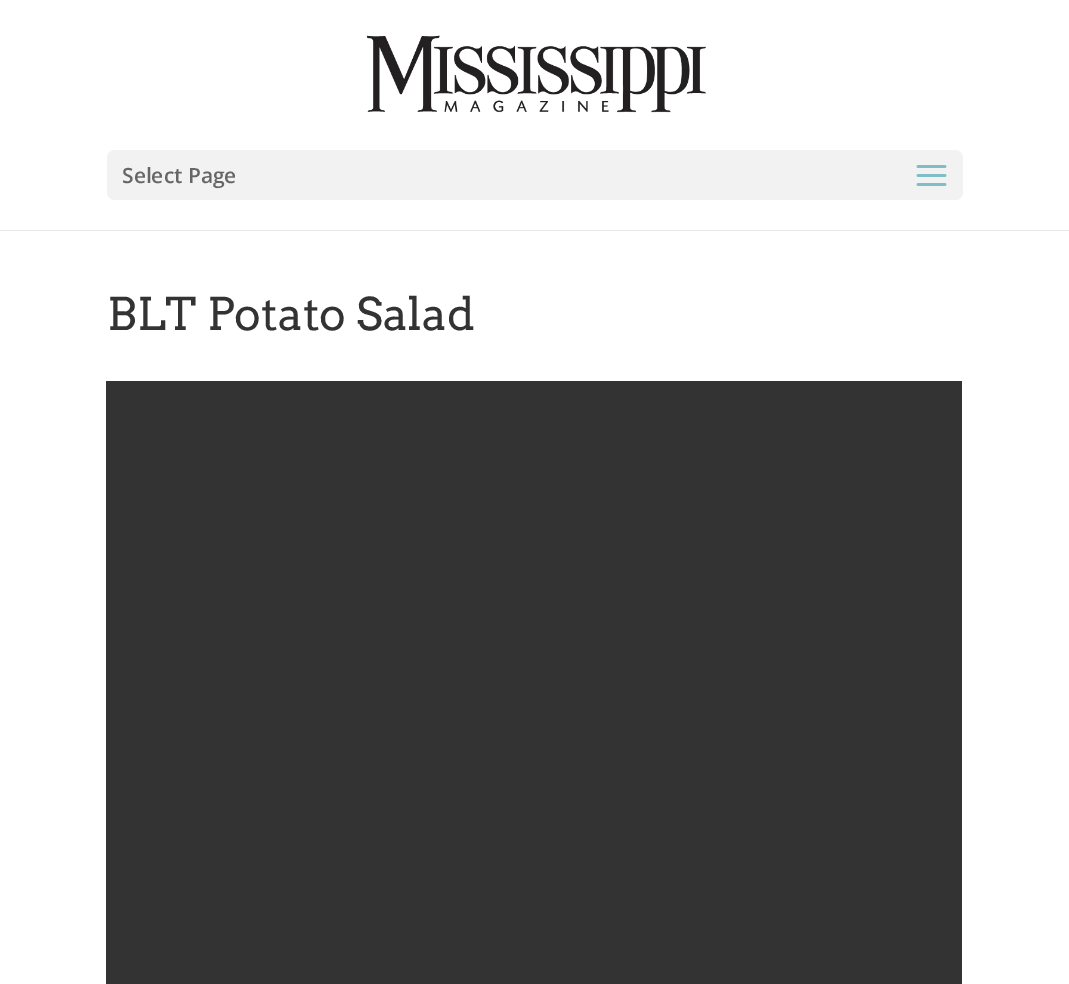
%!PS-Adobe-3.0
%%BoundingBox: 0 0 1069 984
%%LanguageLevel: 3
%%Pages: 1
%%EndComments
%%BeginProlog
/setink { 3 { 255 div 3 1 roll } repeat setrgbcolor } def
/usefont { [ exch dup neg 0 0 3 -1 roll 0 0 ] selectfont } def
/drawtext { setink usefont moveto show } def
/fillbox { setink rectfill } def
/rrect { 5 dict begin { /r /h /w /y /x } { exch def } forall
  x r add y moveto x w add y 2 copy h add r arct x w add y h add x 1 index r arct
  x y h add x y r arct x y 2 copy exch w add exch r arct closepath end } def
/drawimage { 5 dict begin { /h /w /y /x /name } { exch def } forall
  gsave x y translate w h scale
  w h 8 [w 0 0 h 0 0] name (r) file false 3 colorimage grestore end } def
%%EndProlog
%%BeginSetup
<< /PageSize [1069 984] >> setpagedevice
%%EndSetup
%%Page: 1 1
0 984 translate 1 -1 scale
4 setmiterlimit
0 0 1069 984 255 255 255 fillbox
230 230 230 setink
0 230 moveto 0 231 lineto 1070 231 lineto 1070 2 lineto 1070 230 lineto closepath fill
(assets/img1.rgb) 366 35 340 78 drawimage
242 242 242 setink
107 150 856 50 8 rrect fill
(Select Page) 122 183 /OpenSans-SemiBold 21 102 102 102 drawtext
(assets/img2.rgb) 916 165 31 21 drawimage
(BLT Potato Salad) 107 330 /Arvo-Regular 45 51 51 51 drawtext
106 381 856 603 51 51 51 fillbox
showpage
%%EOF
